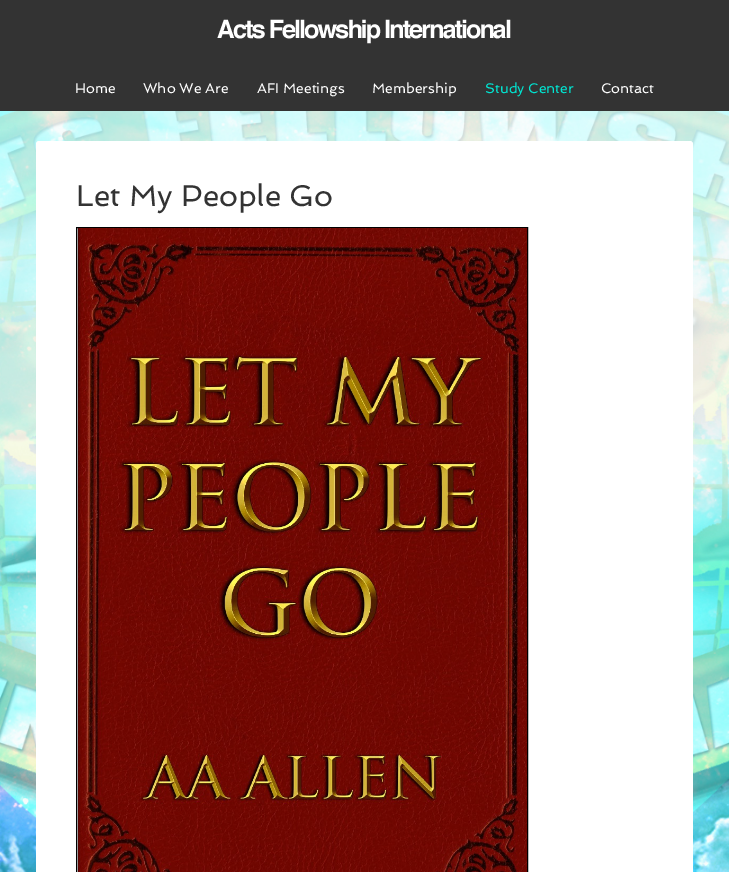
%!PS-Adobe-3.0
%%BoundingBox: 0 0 729 872
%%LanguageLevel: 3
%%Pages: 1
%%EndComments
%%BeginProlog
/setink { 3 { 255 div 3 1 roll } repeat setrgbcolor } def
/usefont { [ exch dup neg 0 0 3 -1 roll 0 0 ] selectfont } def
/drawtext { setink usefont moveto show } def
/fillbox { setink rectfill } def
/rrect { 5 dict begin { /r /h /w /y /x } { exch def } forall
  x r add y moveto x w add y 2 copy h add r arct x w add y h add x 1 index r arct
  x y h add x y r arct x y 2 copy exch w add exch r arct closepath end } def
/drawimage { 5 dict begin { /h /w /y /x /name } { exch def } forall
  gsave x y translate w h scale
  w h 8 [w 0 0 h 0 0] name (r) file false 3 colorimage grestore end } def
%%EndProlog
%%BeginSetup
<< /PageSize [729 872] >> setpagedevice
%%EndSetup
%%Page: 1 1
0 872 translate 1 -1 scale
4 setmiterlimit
0 0 729 872 255 255 255 fillbox
0 0 729 111 51 51 51 fillbox
(assets/img1.rgb) 217 19 294 25 drawimage
(Home) 75 93 /Spinnaker-Regular 14 255 255 255 drawtext
(Who We Are) 143 93 /Spinnaker-Regular 14 255 255 255 drawtext
(AFI Meetings) 257 93 /Spinnaker-Regular 14 255 255 255 drawtext
(Membership) 372 93 /Spinnaker-Regular 14 255 255 255 drawtext
(Study Center) 485 93 /Spinnaker-Regular 14 1 228 209 drawtext
(Contact) 601 93 /Spinnaker-Regular 14 255 255 255 drawtext
(assets/img2.rgb) 0 111 729 761 drawimage
36 141 657 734 3 rrect fill
(Let My People Go) 76 206 /Spinnaker-Regular 30 51 51 51 drawtext
77 228 1 644 211 211 211 fillbox
0 0 0 setink
76.5 227.5 451 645 rectstroke
(assets/img3.rgb) 78 228 449 644 drawimage
showpage
%%EOF
